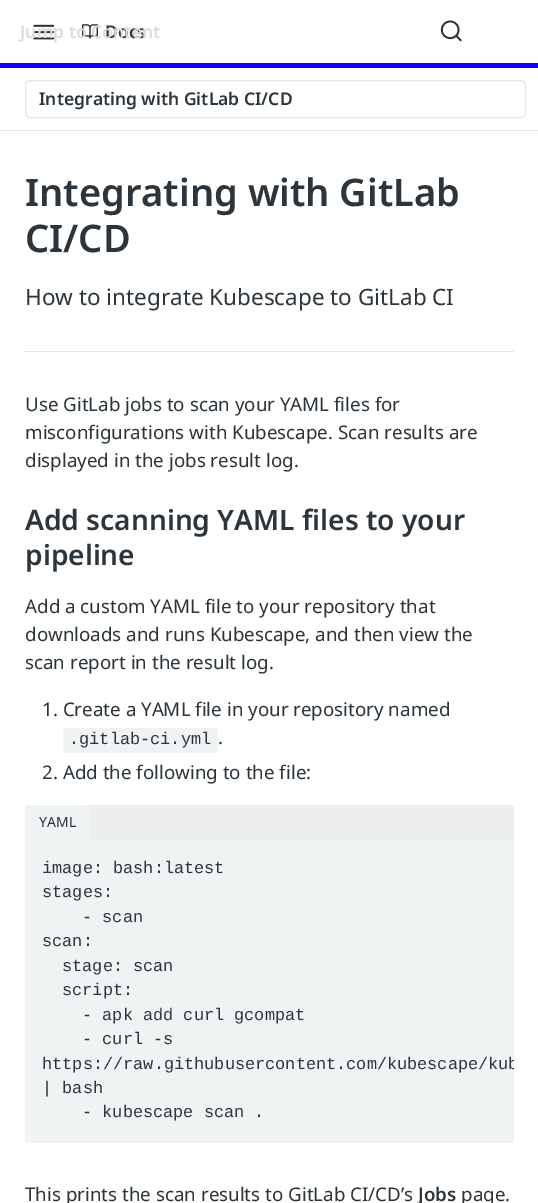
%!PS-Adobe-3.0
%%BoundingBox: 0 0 538 1203
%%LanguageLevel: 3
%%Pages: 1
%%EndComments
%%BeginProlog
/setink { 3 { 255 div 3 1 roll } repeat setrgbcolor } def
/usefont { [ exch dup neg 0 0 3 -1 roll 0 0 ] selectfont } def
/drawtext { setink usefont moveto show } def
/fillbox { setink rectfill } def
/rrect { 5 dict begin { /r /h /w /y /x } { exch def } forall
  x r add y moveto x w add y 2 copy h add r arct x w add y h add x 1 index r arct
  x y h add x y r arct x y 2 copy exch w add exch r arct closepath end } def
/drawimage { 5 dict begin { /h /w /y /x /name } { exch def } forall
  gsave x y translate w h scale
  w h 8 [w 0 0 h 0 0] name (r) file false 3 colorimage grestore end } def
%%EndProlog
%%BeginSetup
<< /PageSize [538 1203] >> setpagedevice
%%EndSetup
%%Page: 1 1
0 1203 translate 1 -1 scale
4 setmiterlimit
0 0 538 1203 255 255 255 fillbox
230 230 230 setink
0 130 moveto 0 131 lineto 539 131 lineto 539 1 lineto 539 130 lineto closepath fill
0 63 538 5 20 0 255 fillbox
(assets/img2.rgb) 33 24 22 16 drawimage
(assets/img3.rgb) 82 24 16 15 drawimage
(Docs) 105 38 /NotoSans-SemiBold 17.5 43 53 59 drawtext
(Jump to Content) 20 38 /NotoSans-SemiBold 17.5 216 218 219 drawtext
(assets/img1.rgb) 440 20 22 22 drawimage
230 230 230 setink
25.5 80.5 500 37 4.5 rrect stroke
(Integrating with GitLab CI/CD) 39 105 /NotoSans-SemiBold 17.5 43 53 59 drawtext
25 351 489 1 230 230 230 fillbox
(Integrating with GitLab) 25 206 /NotoSans-SemiBold 38 43 53 59 drawtext
(CI/CD) 25 252 /NotoSans-SemiBold 38 43 53 59 drawtext
(How to integrate Kubescape to GitLab CI) 25 305 /NotoSans-Regular 22.5 43 53 59 drawtext
(Use GitLab jobs to scan your YAML files for) 25 411 /NotoSans-Regular 18.75 43 53 59 drawtext
(misconfigurations with Kubescape. Scan results are) 25 439 /NotoSans-Regular 18.75 43 53 59 drawtext
(displayed in the jobs result log.) 25 467 /NotoSans-Regular 18.75 43 53 59 drawtext
(Add scanning YAML files to your) 25 530 /NotoSans-SemiBold 28.1 43 53 59 drawtext
(pipeline) 25 565 /NotoSans-SemiBold 28.1 43 53 59 drawtext
(Add a custom YAML file to your repository that) 25 613 /NotoSans-Regular 18.75 43 53 59 drawtext
(downloads and runs Kubescape, and then view the) 25 641 /NotoSans-Regular 18.75 43 53 59 drawtext
(scan report in the result log.) 25 669 /NotoSans-Regular 18.75 43 53 59 drawtext
(1. Create a YAML file in your repository named) 42 716 /NotoSans-Regular 18.75 43 53 59 drawtext
240 243 244 setink
63 728 155 25 4 rrect fill
(.gitlab-ci.yml) 69 744 /LiberationMono-Regular 16.9 43 53 59 drawtext
(.) 218 744 /NotoSans-Regular 18.75 43 53 59 drawtext
(2. Add the following to the file:) 42 779 /NotoSans-Regular 18.75 43 53 59 drawtext
235 237 239 setink
29 805 moveto 510 805 lineto 512 805 514 807 514 809 curveto 514 840 lineto 25 840 lineto 25 809 lineto 25 807 27 805 29 805 curveto closepath fill
240 243 244 setink
29 805 moveto 90 805 lineto 90 840 lineto 25 840 lineto 25 809 lineto 25 807 27 805 29 805 curveto closepath fill
(YAML) 39 827 /NotoSans-Regular 14 43 53 59 drawtext
240 243 244 setink
25 840 moveto 514 840 lineto 514 1139 lineto 514 1141 512 1143 510 1143 curveto 29 1143 lineto 27 1143 25 1141 25 1139 curveto closepath fill
25 840 489 303 4 rrect fill
(image: bash:latest) 42 873 /LiberationMono-Regular 16.9 43 53 59 drawtext
(stages:) 42 897 /LiberationMono-Regular 16.9 43 53 59 drawtext
(- scan) 82 922 /LiberationMono-Regular 16.9 43 53 59 drawtext
(scan:) 42 946 /LiberationMono-Regular 16.9 43 53 59 drawtext
(stage: scan) 62 971 /LiberationMono-Regular 16.9 43 53 59 drawtext
(script:) 62 995 /LiberationMono-Regular 16.9 43 53 59 drawtext
(- apk add curl gcompat) 82 1020 /LiberationMono-Regular 16.9 43 53 59 drawtext
(- curl -s) 82 1044 /LiberationMono-Regular 16.9 43 53 59 drawtext
gsave
25 840 489 303 4 rrect clip newpath
(https://raw.githubusercontent.com/kubescape/kub) 42 1069 /LiberationMono-Regular 16.9 43 53 59 drawtext
grestore
(| bash) 42 1093 /LiberationMono-Regular 16.9 43 53 59 drawtext
(- kubescape scan .) 82 1117 /LiberationMono-Regular 16.9 43 53 59 drawtext
(This prints the scan results to GitLab CI/CD’s) 25 1201 /NotoSans-Regular 18.75 43 53 59 drawtext
(Jobs) 418 1201 /NotoSans-SemiBold 18.75 43 53 59 drawtext
(page.) 461 1201 /NotoSans-Regular 18.75 43 53 59 drawtext
showpage
%%EOF
